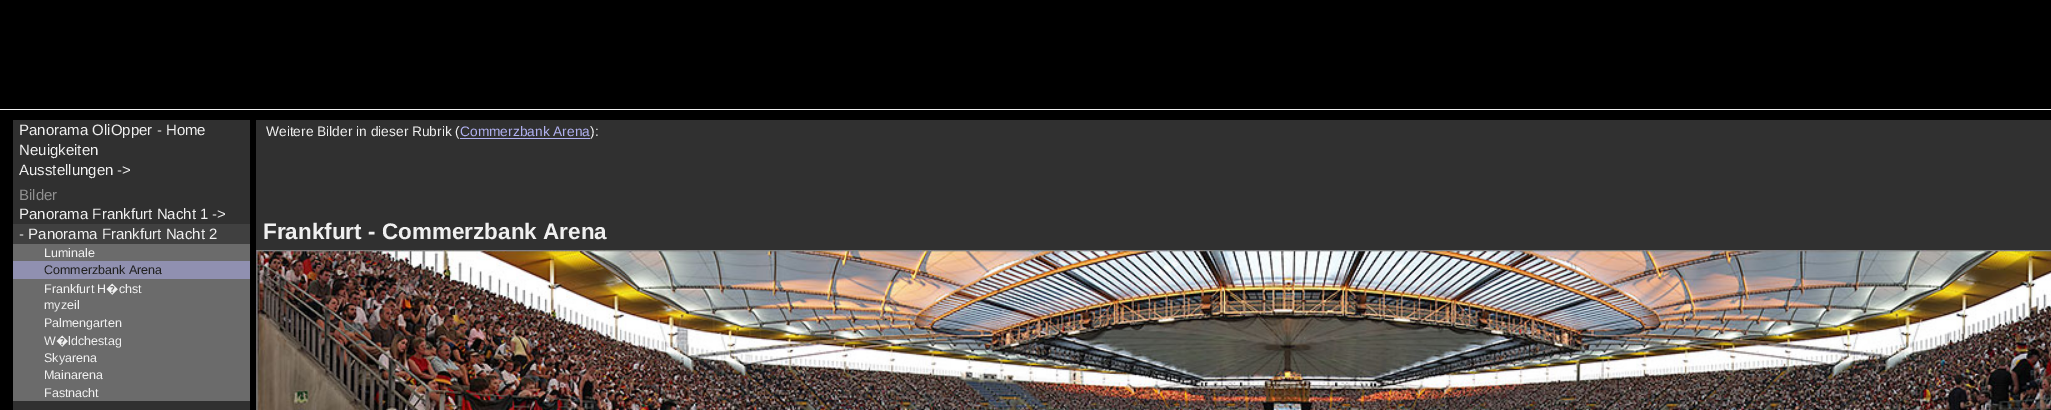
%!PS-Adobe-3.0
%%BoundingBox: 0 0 2051 410
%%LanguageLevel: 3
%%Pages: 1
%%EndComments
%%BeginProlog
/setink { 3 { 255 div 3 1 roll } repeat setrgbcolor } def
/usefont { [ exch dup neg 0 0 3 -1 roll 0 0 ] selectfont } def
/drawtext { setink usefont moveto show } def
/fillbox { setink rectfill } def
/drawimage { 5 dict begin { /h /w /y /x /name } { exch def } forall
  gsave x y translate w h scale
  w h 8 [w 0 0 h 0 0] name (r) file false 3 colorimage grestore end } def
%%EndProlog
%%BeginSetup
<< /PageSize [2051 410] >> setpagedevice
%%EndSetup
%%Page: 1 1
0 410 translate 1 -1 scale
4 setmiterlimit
0 0 2051 410 0 0 0 fillbox
0 109 2051 1 240 240 240 fillbox
13 120 237 104 48 48 48 fillbox
(Panorama OliOpper - Home) 19 135 /LiberationSans-Regular 15 240 240 240 drawtext
(Neuigkeiten) 19 155 /LiberationSans-Regular 15 240 240 240 drawtext
(Ausstellungen ->) 19 175 /LiberationSans-Regular 15 240 240 240 drawtext
(Bilder) 19 200 /LiberationSans-Regular 15 144 144 144 drawtext
(Panorama Frankfurt Nacht 1 ->) 19 219 /LiberationSans-Regular 15 240 240 240 drawtext
13 224 237 20 64 64 64 fillbox
(- Panorama Frankfurt Nacht 2) 19 239 /LiberationSans-Regular 15 240 240 240 drawtext
13 244 237 17 107 107 107 fillbox
(Luminale) 44 257 /LiberationSans-Regular 12.5 240 240 240 drawtext
13 261 237 18 144 144 176 fillbox
(Commerzbank Arena) 44 274 /LiberationSans-Regular 12.5 32 32 32 drawtext
13 279 237 122 107 107 107 fillbox
(Frankfurt H) 44 293 /LiberationSans-Regular 12.5 240 240 240 drawtext
(�) 106 293 /NotoSans-Regular 12.5 240 240 240 drawtext
(chst) 119 293 /LiberationSans-Regular 12.5 240 240 240 drawtext
(myzeil) 44 309 /LiberationSans-Regular 12.5 240 240 240 drawtext
(Palmengarten) 44 327 /LiberationSans-Regular 12.5 240 240 240 drawtext
(W) 44 345 /LiberationSans-Regular 12.5 240 240 240 drawtext
(�) 56 345 /NotoSans-Regular 12.5 240 240 240 drawtext
(ldchestag) 68 345 /LiberationSans-Regular 12.5 240 240 240 drawtext
(Skyarena) 44 362 /LiberationSans-Regular 12.5 240 240 240 drawtext
(Mainarena) 44 379 /LiberationSans-Regular 12.5 240 240 240 drawtext
(Fastnacht) 44 397 /LiberationSans-Regular 12.5 240 240 240 drawtext
13 401 237 9 48 48 48 fillbox
256 120 1795 290 48 48 48 fillbox
(Weitere Bilder in dieser Rubrik \() 266 136 /LiberationSans-Regular 13.75 240 240 240 drawtext
(Commerzbank Arena) 460 136 /LiberationSans-Regular 13.75 176 176 240 drawtext
460 138 130 1 176 176 240 fillbox
(\):) 590 136 /LiberationSans-Regular 13.75 240 240 240 drawtext
(Frankfurt - Commerzbank Arena) 263 239 /LiberationSans-Bold 22.5 240 240 240 drawtext
(assets/img1.rgb) 256 250 1795 160 drawimage
showpage
%%EOF
